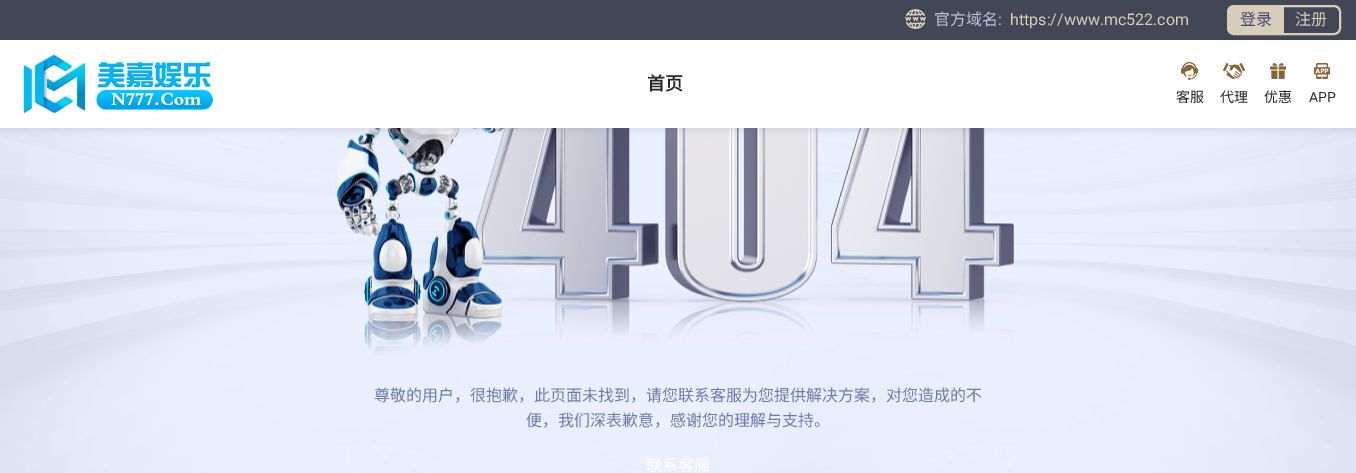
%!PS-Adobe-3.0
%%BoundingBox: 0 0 1356 473
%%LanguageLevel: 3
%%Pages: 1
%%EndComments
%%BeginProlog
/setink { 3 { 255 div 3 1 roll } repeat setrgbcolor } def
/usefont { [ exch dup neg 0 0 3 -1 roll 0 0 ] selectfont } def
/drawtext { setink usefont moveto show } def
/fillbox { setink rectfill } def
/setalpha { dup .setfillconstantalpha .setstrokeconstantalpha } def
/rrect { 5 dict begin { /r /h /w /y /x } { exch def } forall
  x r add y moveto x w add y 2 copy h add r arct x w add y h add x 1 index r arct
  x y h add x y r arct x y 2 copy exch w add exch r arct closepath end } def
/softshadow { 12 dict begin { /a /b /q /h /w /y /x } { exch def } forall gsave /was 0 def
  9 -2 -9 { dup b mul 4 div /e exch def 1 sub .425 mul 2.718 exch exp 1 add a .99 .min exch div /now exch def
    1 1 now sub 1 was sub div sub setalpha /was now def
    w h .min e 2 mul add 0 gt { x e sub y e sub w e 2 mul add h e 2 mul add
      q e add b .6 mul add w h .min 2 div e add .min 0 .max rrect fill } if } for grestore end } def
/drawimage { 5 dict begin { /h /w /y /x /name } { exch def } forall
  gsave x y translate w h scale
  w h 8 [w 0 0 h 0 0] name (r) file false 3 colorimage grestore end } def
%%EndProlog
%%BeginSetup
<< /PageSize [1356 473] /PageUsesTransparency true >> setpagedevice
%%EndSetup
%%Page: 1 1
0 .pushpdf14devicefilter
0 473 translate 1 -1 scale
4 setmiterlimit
0 0 1356 473 255 255 255 fillbox
(assets/img7.rgb) 0 128 1356 345 drawimage
(assets/img8.rgb) 335 128 679 228 drawimage
65 71 85 setink
0 3 1356 128 0 2.5 0.1 softshadow
0 40 1356 88 255 255 255 fillbox
0 0 1356 40 65 71 85 fillbox
(assets/img1.rgb) 905 9 21 20 drawimage
(官方域名) 934 25 /NotoSansCJKSC-Regular 16 185 195 216 drawtext
(:) 998 25 /Roboto-Regular 16 185 195 216 drawtext
(https://www.mc522.com) 1010 25 /Roboto-Regular 16 216 205 185 drawtext
2 setlinewidth
1228 6 112 28 6 rrect stroke
1229 7 55 26 216 205 185 fillbox
(登录) 1240 25 /NotoSansCJKSC-Regular 16 65 71 117 drawtext
(注册) 1295 25 /NotoSansCJKSC-Regular 16 216 205 185 drawtext
(assets/img2.rgb) 23 54 190 60 drawimage
(首页) 647 90 /NotoSansCJKSC-Bold 18 38 38 38 drawtext
(assets/img3.rgb) 1181 62 17 18 drawimage
(客服) 1176 102 /NotoSansCJKSC-Regular 14 38 38 38 drawtext
(assets/img4.rgb) 1223 63 22 16 drawimage
(代理) 1220 102 /NotoSansCJKSC-Regular 14 38 38 38 drawtext
(assets/img5.rgb) 1270 63 16 16 drawimage
(优惠) 1264 102 /NotoSansCJKSC-Regular 14 38 38 38 drawtext
(assets/img6.rgb) 1314 63 16 16 drawimage
(APP) 1309 102 /Roboto-Regular 14 38 38 38 drawtext
(尊敬的用户，很抱歉，此页面未找到，请您联系客服为您提供解决方案，对您造成的不) 374 401 /NotoSansCJKSC-Regular 16 108 123 168 drawtext
(便，我们深表歉意，感谢您的理解与支持。) 526 426 /NotoSansCJKSC-Regular 16 108 123 168 drawtext
(联系客服) 646 471 /NotoSansCJKSC-Regular 16 255 255 255 drawtext
.poppdf14devicefilter showpage
%%EOF
